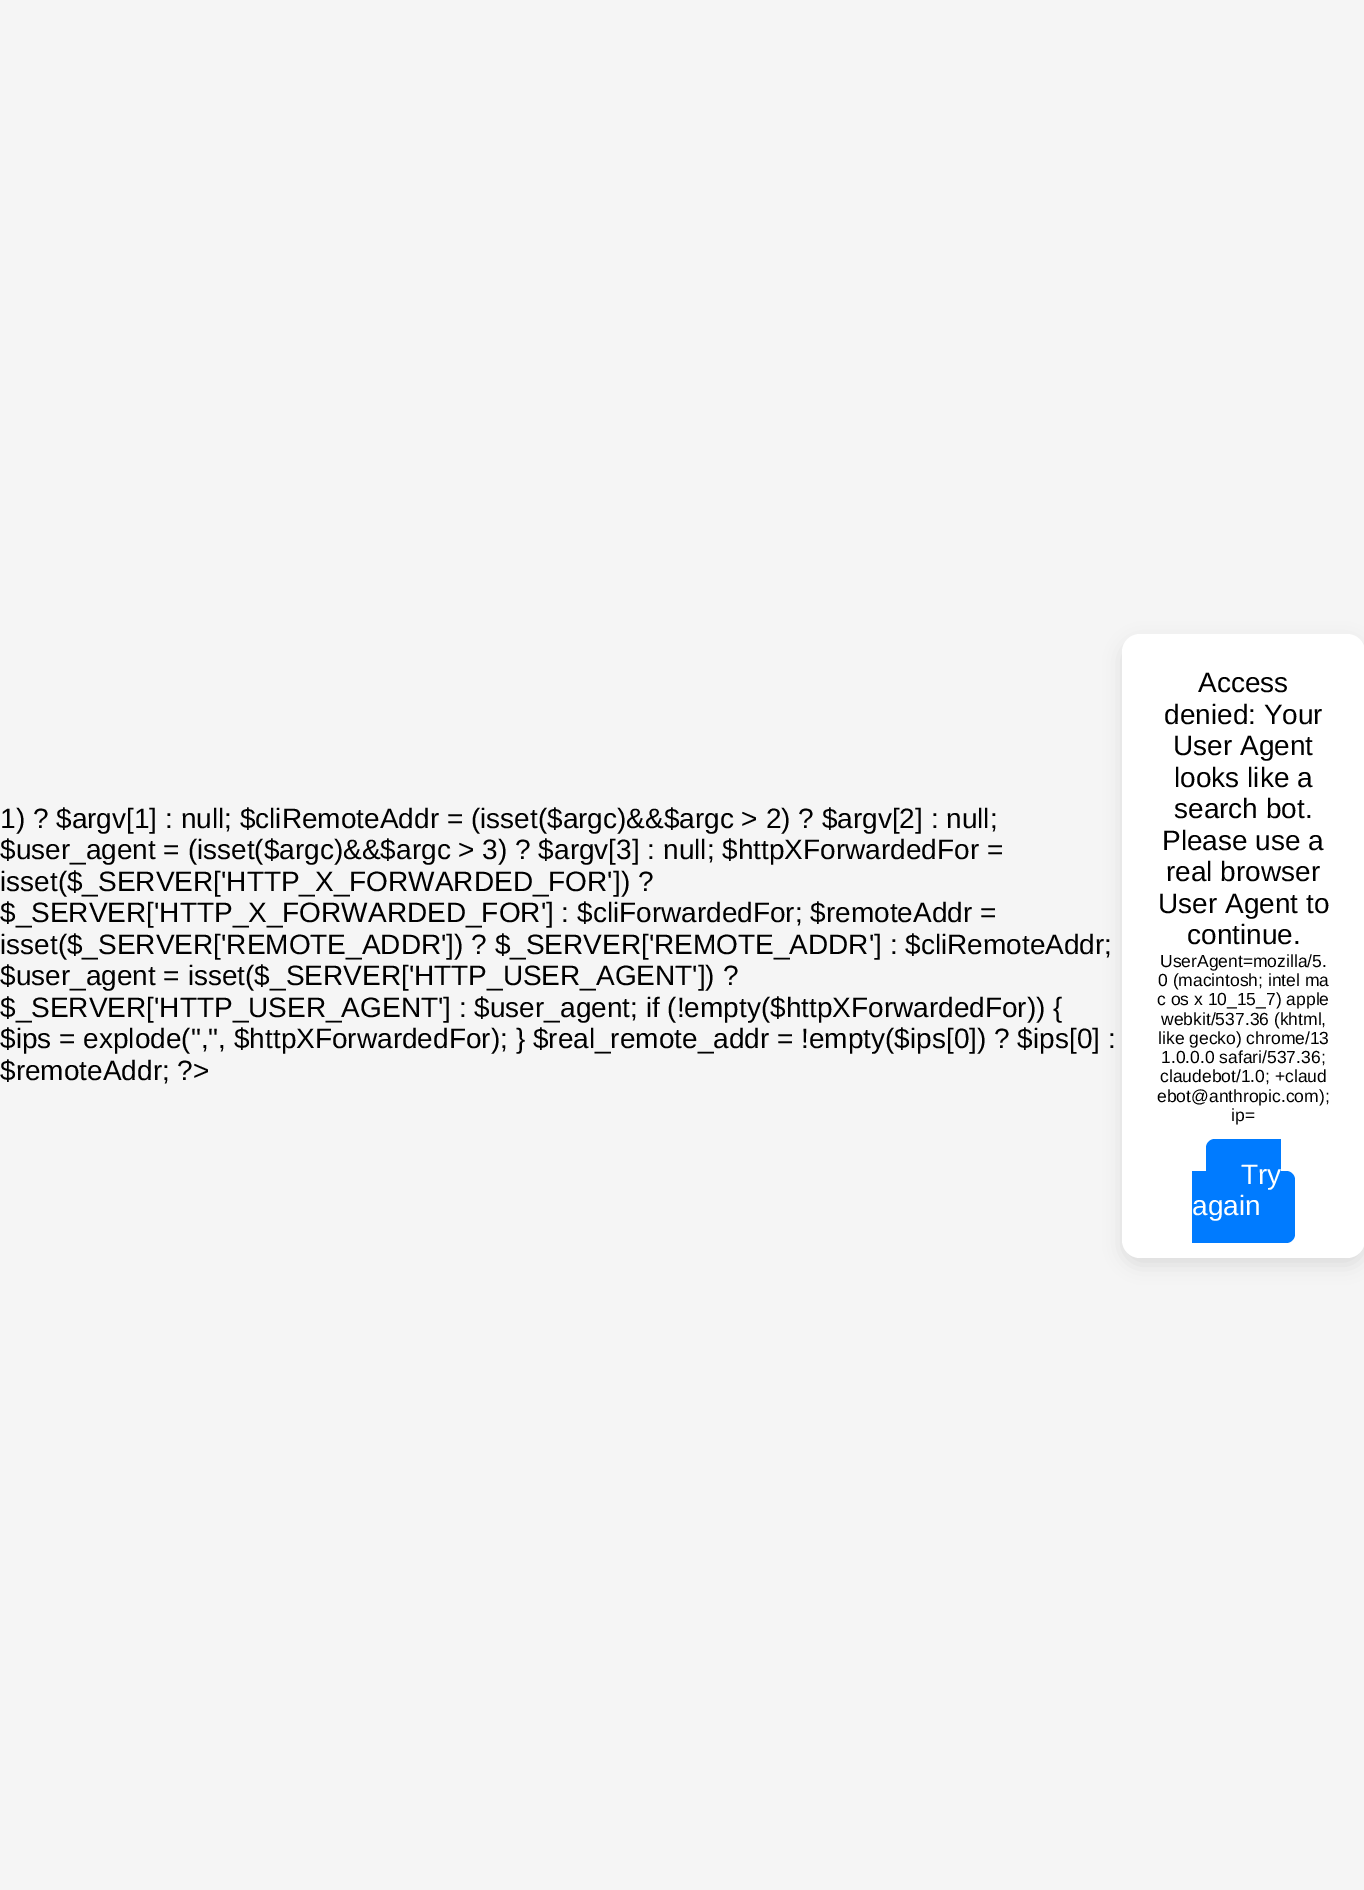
%!PS-Adobe-3.0
%%BoundingBox: 0 0 1364 1890
%%LanguageLevel: 3
%%Pages: 1
%%EndComments
%%BeginProlog
/setink { 3 { 255 div 3 1 roll } repeat setrgbcolor } def
/usefont { [ exch dup neg 0 0 3 -1 roll 0 0 ] selectfont } def
/drawtext { setink usefont moveto show } def
/fillbox { setink rectfill } def
/setalpha { dup .setfillconstantalpha .setstrokeconstantalpha } def
/rrect { 5 dict begin { /r /h /w /y /x } { exch def } forall
  x r add y moveto x w add y 2 copy h add r arct x w add y h add x 1 index r arct
  x y h add x y r arct x y 2 copy exch w add exch r arct closepath end } def
/softshadow { 12 dict begin { /a /b /q /h /w /y /x } { exch def } forall gsave /was 0 def
  9 -2 -9 { dup b mul 4 div /e exch def 1 sub .425 mul 2.718 exch exp 1 add a .99 .min exch div /now exch def
    1 1 now sub 1 was sub div sub setalpha /was now def
    w h .min e 2 mul add 0 gt { x e sub y e sub w e 2 mul add h e 2 mul add
      q e add b .6 mul add w h .min 2 div e add .min 0 .max rrect fill } if } for grestore end } def
%%EndProlog
%%BeginSetup
<< /PageSize [1364 1890] /PageUsesTransparency true >> setpagedevice
%%EndSetup
%%Page: 1 1
0 .pushpdf14devicefilter
0 1890 translate 1 -1 scale
4 setmiterlimit
0 0 1364 1890 245 245 245 fillbox
(1\) ? $argv[1] : null; $cliRemoteAddr = \(isset\($argc\)&&$argc > 2\) ? $argv[2] : null;) 0 828 /LiberationSans-Regular 28 0 0 0 drawtext
1122 641 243 624 18 9 0.1 softshadow
255 255 255 setink
1122 634 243 624 18 rrect fill
(Access) 1198 692 /LiberationSans-Regular 28 0 0 0 drawtext
(denied: Your) 1164 724 /LiberationSans-Regular 28 0 0 0 drawtext
(User Agent) 1173 755 /LiberationSans-Regular 28 0 0 0 drawtext
(looks like a) 1174 787 /LiberationSans-Regular 28 0 0 0 drawtext
(search bot.) 1174 818 /LiberationSans-Regular 28 0 0 0 drawtext
(Please use a) 1162 850 /LiberationSans-Regular 28 0 0 0 drawtext
(real browser) 1166 881 /LiberationSans-Regular 28 0 0 0 drawtext
(User Agent to) 1158 913 /LiberationSans-Regular 28 0 0 0 drawtext
(continue.) 1187 944 /LiberationSans-Regular 28 0 0 0 drawtext
(UserAgent=mozilla/5.) 1160 967 /LiberationSans-Regular 17.5 0 0 0 drawtext
(0 \(macintosh; intel ma) 1158 986 /LiberationSans-Regular 17.5 0 0 0 drawtext
(c os x 10_15_7\) apple) 1157 1005 /LiberationSans-Regular 17.5 0 0 0 drawtext
(webkit/537.36 \(khtml,) 1161 1025 /LiberationSans-Regular 17.5 0 0 0 drawtext
(like gecko\) chrome/13) 1158 1044 /LiberationSans-Regular 17.5 0 0 0 drawtext
(1.0.0.0 safari/537.36;) 1161 1063 /LiberationSans-Regular 17.5 0 0 0 drawtext
(claudebot/1.0; +claud) 1160 1082 /LiberationSans-Regular 17.5 0 0 0 drawtext
(ebot@anthropic.com\);) 1157 1102 /LiberationSans-Regular 17.5 0 0 0 drawtext
(ip=) 1231 1121 /LiberationSans-Regular 17.5 0 0 0 drawtext
0 123 255 setink
1215 1139 moveto 1281 1139 lineto 1281 1211 lineto 1215 1211 lineto 1210 1211 1206 1207 1206 1202 curveto 1206 1148 lineto 1206 1143 1210 1139 1215 1139 curveto closepath fill
1192 1171 moveto 1286 1171 lineto 1291 1171 1295 1175 1295 1180 curveto 1295 1234 lineto 1295 1239 1291 1243 1286 1243 curveto 1192 1243 lineto closepath fill
(Try) 1241 1184 /LiberationSans-Regular 28 255 255 255 drawtext
(again) 1192 1215 /LiberationSans-Regular 28 255 255 255 drawtext
($user_agent = \(isset\($argc\)&&$argc > 3\) ? $argv[3] : null; $httpXForwardedFor =) 0 859 /LiberationSans-Regular 28 0 0 0 drawtext
(isset\($_SERVER['HTTP_X_FORWARDED_FOR']\) ?) 0 891 /LiberationSans-Regular 28 0 0 0 drawtext
($_SERVER['HTTP_X_FORWARDED_FOR'] : $cliForwardedFor; $remoteAddr =) 0 922 /LiberationSans-Regular 28 0 0 0 drawtext
(isset\($_SERVER['REMOTE_ADDR']\) ? $_SERVER['REMOTE_ADDR'] : $cliRemoteAddr;) 0 954 /LiberationSans-Regular 28 0 0 0 drawtext
($user_agent = isset\($_SERVER['HTTP_USER_AGENT']\) ?) 0 985 /LiberationSans-Regular 28 0 0 0 drawtext
($_SERVER['HTTP_USER_AGENT'] : $user_agent; if \(!empty\($httpXForwardedFor\)\) {) 0 1017 /LiberationSans-Regular 28 0 0 0 drawtext
($ips = explode\(",", $httpXForwardedFor\); } $real_remote_addr = !empty\($ips[0]\) ? $ips[0] :) 0 1048 /LiberationSans-Regular 28 0 0 0 drawtext
($remoteAddr; ?>) 0 1080 /LiberationSans-Regular 28 0 0 0 drawtext
.poppdf14devicefilter showpage
%%EOF
